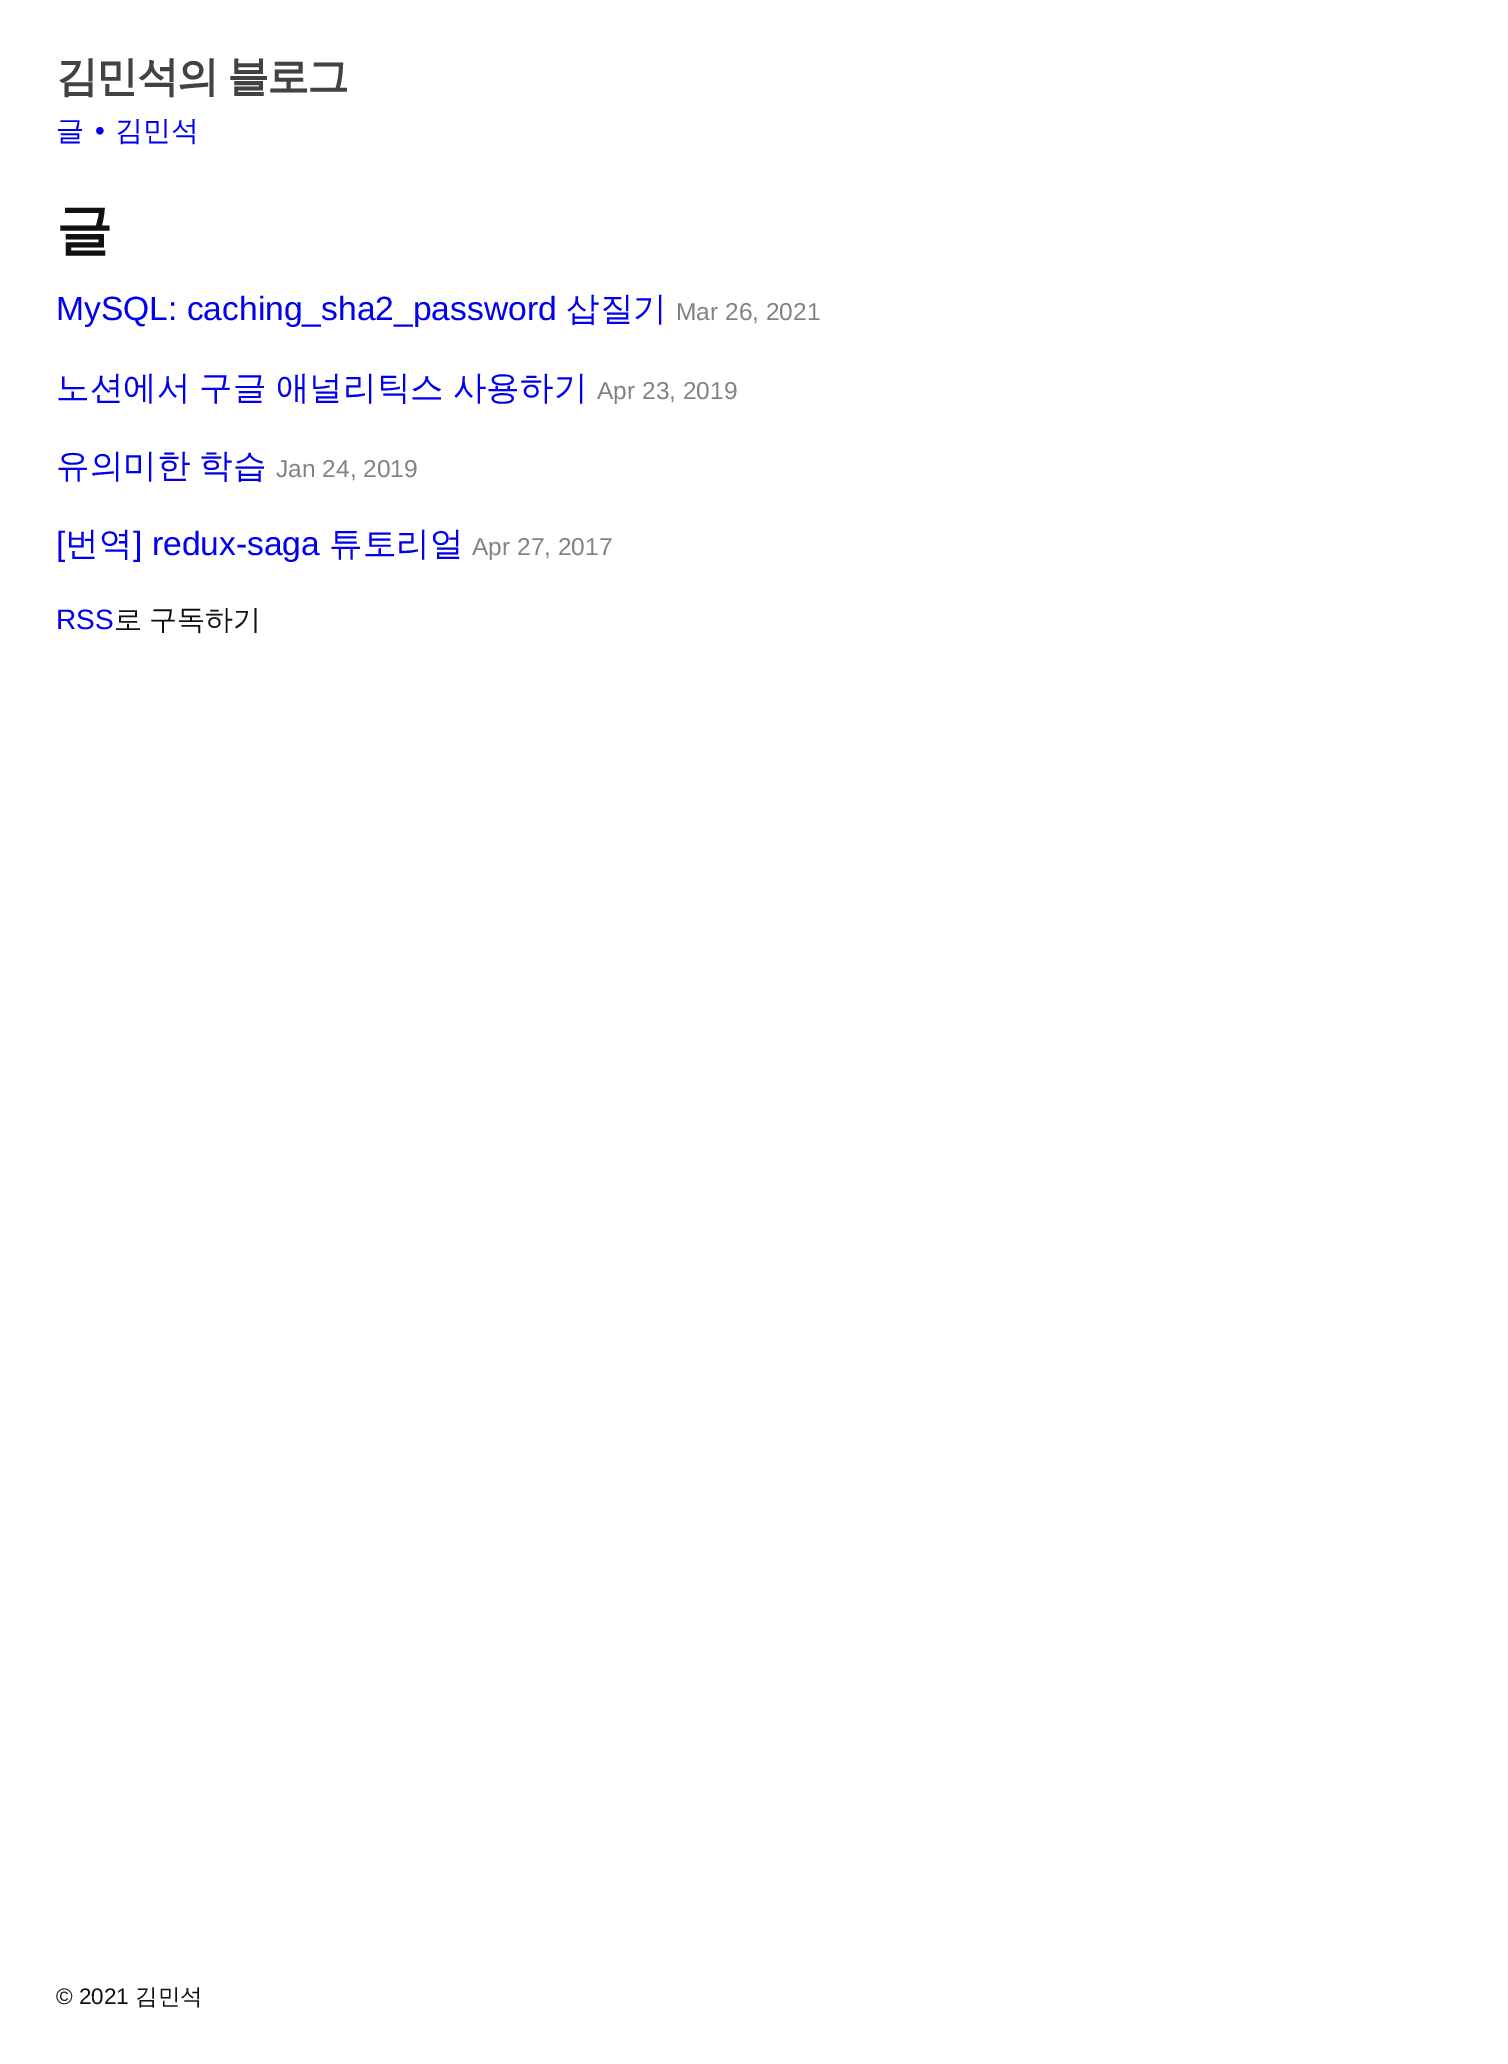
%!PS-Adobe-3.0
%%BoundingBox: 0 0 1508 2064
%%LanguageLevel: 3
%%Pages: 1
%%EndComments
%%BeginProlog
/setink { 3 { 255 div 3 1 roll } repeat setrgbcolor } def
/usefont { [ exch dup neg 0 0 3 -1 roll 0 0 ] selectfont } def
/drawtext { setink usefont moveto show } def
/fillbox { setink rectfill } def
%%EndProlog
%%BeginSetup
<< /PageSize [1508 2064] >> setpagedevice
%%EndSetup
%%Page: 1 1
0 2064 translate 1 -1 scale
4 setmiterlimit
0 0 1508 2064 255 255 255 fillbox
/WenQuanYiZenHei-Bold 42 usefont
66 66 66 setink
56 91 moveto -1 0 32 -1.75 0 (김민석의 블로그) awidthshow
(글) 56 140 /WenQuanYiZenHei-Medium 28 0 0 238 drawtext
(•) 95 140 /LiberationSans-Regular 28 0 0 238 drawtext
(김민석) 115 140 /WenQuanYiZenHei-Medium 28 0 0 238 drawtext
(글) 56 249 /WenQuanYiZenHei-Bold 56 17 17 17 drawtext
(MySQL: caching_sha2_password) 56 320 /LiberationSans-Regular 33.6 0 0 238 drawtext
(삽질기) 566 320 /WenQuanYiZenHei-Medium 33.6 0 0 238 drawtext
(Mar 26, 2021) 676 320 /LiberationSans-Regular 24.5 130 130 130 drawtext
/WenQuanYiZenHei-Medium 33.6 usefont
0 0 238 setink
56 399 moveto -1 0 32 (노션에서 구글 애널리틱스 사용하기) widthshow
(Apr 23, 2019) 597 399 /LiberationSans-Regular 24.5 130 130 130 drawtext
/WenQuanYiZenHei-Medium 33.6 usefont
0 0 238 setink
56 477 moveto -1 0 32 (유의미한 학습) widthshow
(Jan 24, 2019) 276 477 /LiberationSans-Regular 24.5 130 130 130 drawtext
([) 56 555 /LiberationSans-Regular 33.6 0 0 238 drawtext
(번역) 65 555 /WenQuanYiZenHei-Medium 33.6 0 0 238 drawtext
(] redux-saga) 133 555 /LiberationSans-Regular 33.6 0 0 238 drawtext
(튜토리얼) 329 555 /WenQuanYiZenHei-Medium 33.6 0 0 238 drawtext
(Apr 27, 2017) 472 555 /LiberationSans-Regular 24.5 130 130 130 drawtext
(RSS) 56 629 /LiberationSans-Regular 28 0 0 238 drawtext
/WenQuanYiZenHei-Medium 28 usefont
17 17 17 setink
114 629 moveto -1 0 32 (로 구독하기) widthshow
(© 2021) 56 2004 /LiberationSans-Regular 22.5 17 17 17 drawtext
(김민석) 135 2004 /WenQuanYiZenHei-Medium 22.5 17 17 17 drawtext
showpage
%%EOF
